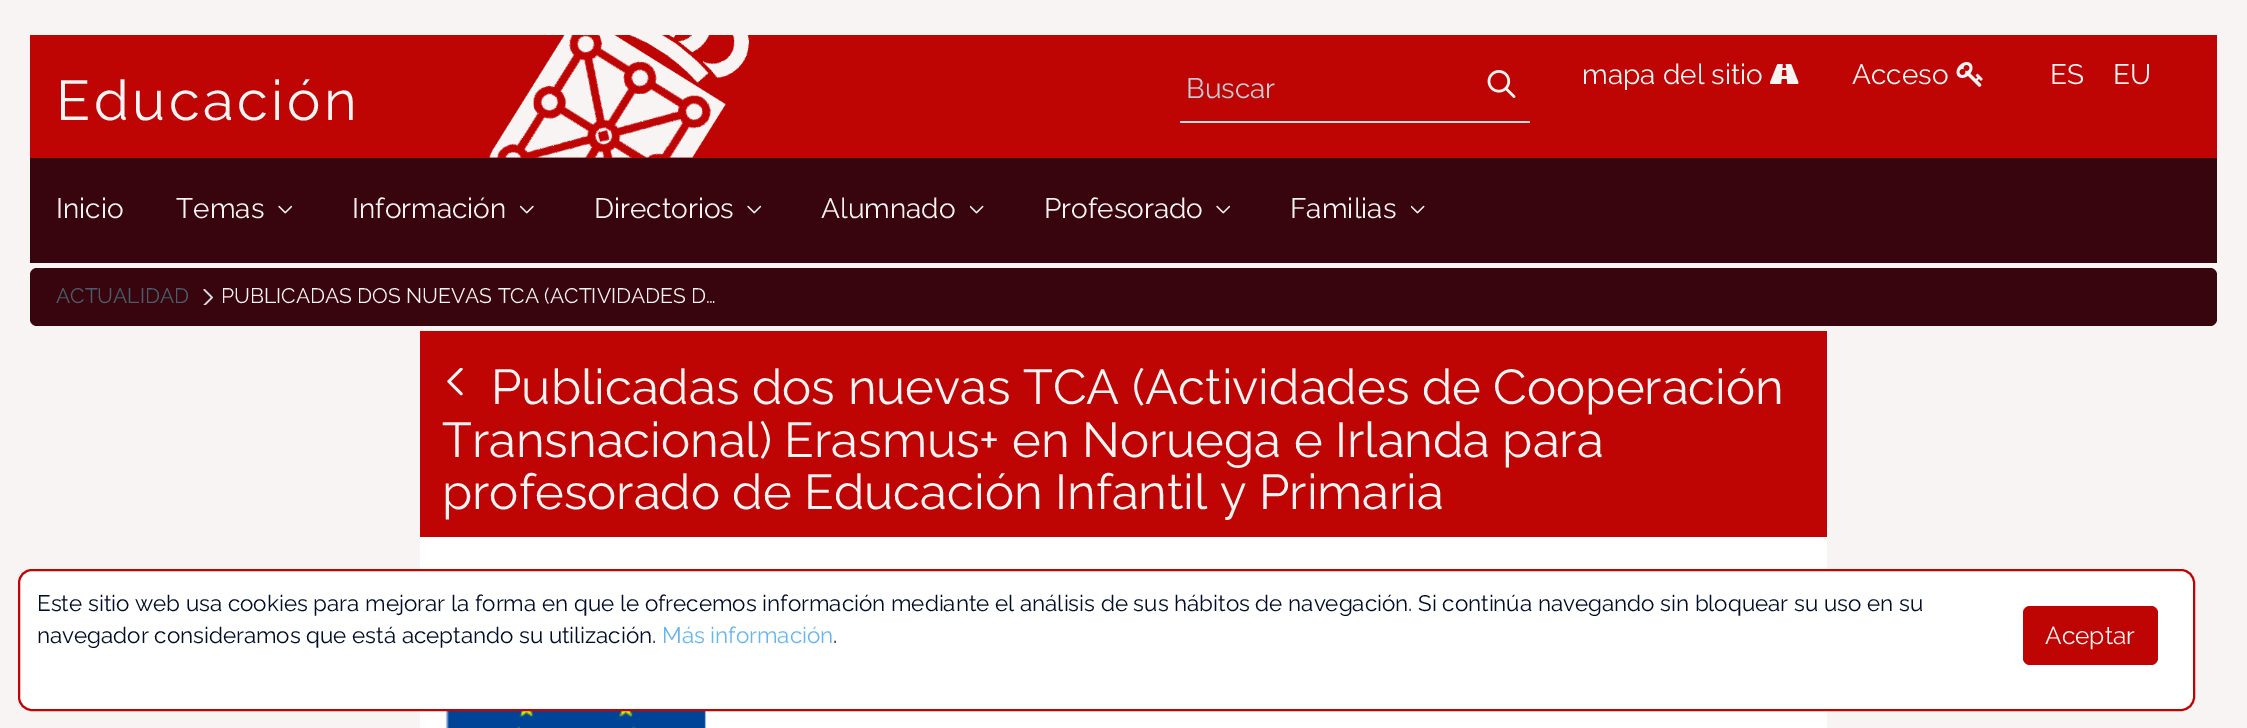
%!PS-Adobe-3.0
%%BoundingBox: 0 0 2247 728
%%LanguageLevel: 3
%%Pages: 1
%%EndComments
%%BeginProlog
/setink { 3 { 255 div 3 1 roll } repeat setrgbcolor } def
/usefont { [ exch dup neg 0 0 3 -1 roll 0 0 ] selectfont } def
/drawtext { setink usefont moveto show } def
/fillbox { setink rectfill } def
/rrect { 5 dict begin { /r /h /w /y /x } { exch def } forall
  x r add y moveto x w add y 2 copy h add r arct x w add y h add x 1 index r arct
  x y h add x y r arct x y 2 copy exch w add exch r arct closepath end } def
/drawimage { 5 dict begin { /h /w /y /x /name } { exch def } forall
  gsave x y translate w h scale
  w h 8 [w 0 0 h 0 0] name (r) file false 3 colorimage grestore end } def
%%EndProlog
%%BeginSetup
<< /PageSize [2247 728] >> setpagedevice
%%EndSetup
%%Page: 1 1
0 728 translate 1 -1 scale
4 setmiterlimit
0 0 2247 728 247 244 243 fillbox
30 35 2187 123 191 4 4 fillbox
(assets/img1.rgb) 489 35 261 123 drawimage
/Raleway-Thin 56 usefont
247 244 243 setink
56 120 moveto 3.5 0 (Educación) ashow
(mapa del sitio) 1582 84 /Raleway-Thin 28 247 244 243 drawtext
(assets/img2.rgb) 1770 64 29 20 drawimage
(Acceso) 1852 84 /Raleway-Thin 28 247 244 243 drawtext
(assets/img3.rgb) 1956 62 27 25 drawimage
(ES) 2050 84 /Raleway-Thin 28 247 244 243 drawtext
(EU) 2113 84 /Raleway-Thin 28 247 244 243 drawtext
1180 121 350 2 214 220 226 fillbox
(Buscar) 1186 98 /Raleway-Thin 28 192 204 211 drawtext
(assets/img4.rgb) 1487 70 29 28 drawimage
30 158 2187 105 56 4 14 fillbox
(Inicio) 56 218 /Raleway-Thin 28 247 244 243 drawtext
(Temas) 176 218 /Raleway-Thin 28 247 244 243 drawtext
(assets/img5.rgb) 278 205 14 9 drawimage
(Información) 352 218 /Raleway-Thin 28 247 244 243 drawtext
(assets/img6.rgb) 520 205 14 9 drawimage
(Directorios) 594 218 /Raleway-Thin 28 247 244 243 drawtext
(assets/img5.rgb) 747 205 14 9 drawimage
(Alumnado) 821 218 /Raleway-Thin 28 247 244 243 drawtext
(assets/img7.rgb) 970 205 14 9 drawimage
(Profesorado) 1044 218 /Raleway-Thin 28 247 244 243 drawtext
(assets/img5.rgb) 1216 205 14 9 drawimage
(Familias) 1290 218 /Raleway-Thin 28 247 244 243 drawtext
(assets/img7.rgb) 1411 205 14 9 drawimage
56 4 14 setink
30 268 2187 58 7 rrect fill
(ACTUALIDAD) 56 303 /Raleway-Thin 21 74 94 106 drawtext
(assets/img8.rgb) 203 289 10 16 drawimage
(PUBLICADAS DOS NUEVAS TCA \(ACTIVIDADES D…) 221 303 /Raleway-Thin 21 247 244 243 drawtext
420 537 1407 191 255 255 255 fillbox
420 331 1407 206 191 4 4 fillbox
(assets/img9.rgb) 447 368 16 28 drawimage
(Publicadas dos nuevas TCA \(Actividades de Cooperación) 491 404 /Raleway-Thin 49 247 244 243 drawtext
(Transnacional\) Erasmus+ en Noruega e Irlanda para) 442 457 /Raleway-Thin 49 247 244 243 drawtext
(profesorado de Educación Infantil y Primaria) 442 509 /Raleway-Thin 49 247 244 243 drawtext
(assets/img10.rgb) 445 711 261 17 drawimage
255 255 255 setink
19 570 2175 140 13 rrect gsave fill grestore
191 4 4 setink
2 setlinewidth
stroke
(Este sitio web usa cookies para mejorar la forma en que le ofrecemos información mediante el análisis de sus hábitos de navegación. Si continúa navegando sin bloquear su uso en su) 37 611 /Raleway-Thin 22.4 0 12 40 drawtext
(navegador consideramos que está aceptando su utilización.) 37 643 /Raleway-Thin 22.4 0 12 40 drawtext
(Más información) 662 643 /Raleway-Thin 22.4 101 182 240 drawtext
(.) 833 643 /Raleway-Thin 22.4 0 12 40 drawtext
191 4 4 setink
2023 606 135 59 7 rrect fill
(Aceptar) 2045 644 /Raleway-Thin 24.5 247 244 243 drawtext
showpage
%%EOF
